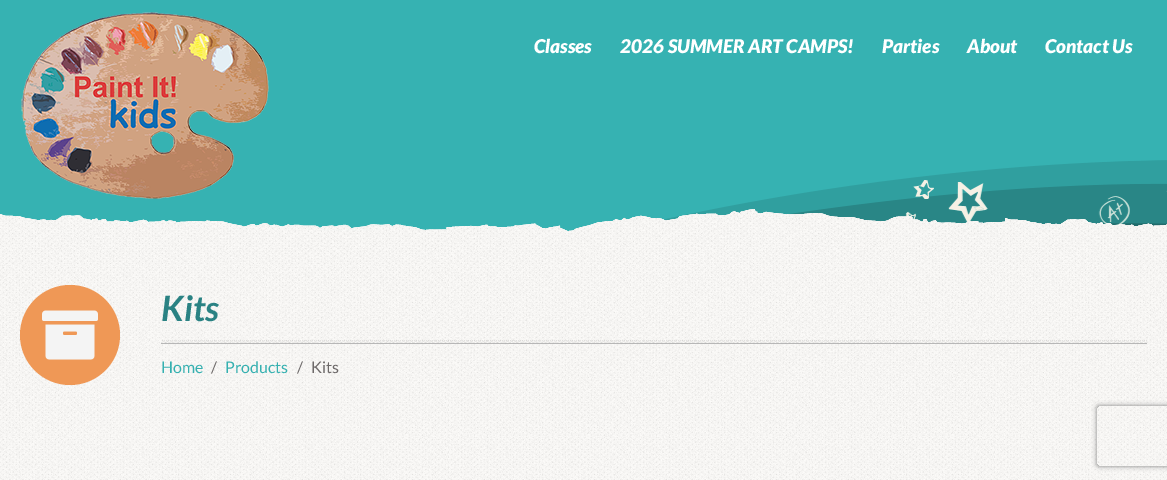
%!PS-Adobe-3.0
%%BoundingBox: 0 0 1167 480
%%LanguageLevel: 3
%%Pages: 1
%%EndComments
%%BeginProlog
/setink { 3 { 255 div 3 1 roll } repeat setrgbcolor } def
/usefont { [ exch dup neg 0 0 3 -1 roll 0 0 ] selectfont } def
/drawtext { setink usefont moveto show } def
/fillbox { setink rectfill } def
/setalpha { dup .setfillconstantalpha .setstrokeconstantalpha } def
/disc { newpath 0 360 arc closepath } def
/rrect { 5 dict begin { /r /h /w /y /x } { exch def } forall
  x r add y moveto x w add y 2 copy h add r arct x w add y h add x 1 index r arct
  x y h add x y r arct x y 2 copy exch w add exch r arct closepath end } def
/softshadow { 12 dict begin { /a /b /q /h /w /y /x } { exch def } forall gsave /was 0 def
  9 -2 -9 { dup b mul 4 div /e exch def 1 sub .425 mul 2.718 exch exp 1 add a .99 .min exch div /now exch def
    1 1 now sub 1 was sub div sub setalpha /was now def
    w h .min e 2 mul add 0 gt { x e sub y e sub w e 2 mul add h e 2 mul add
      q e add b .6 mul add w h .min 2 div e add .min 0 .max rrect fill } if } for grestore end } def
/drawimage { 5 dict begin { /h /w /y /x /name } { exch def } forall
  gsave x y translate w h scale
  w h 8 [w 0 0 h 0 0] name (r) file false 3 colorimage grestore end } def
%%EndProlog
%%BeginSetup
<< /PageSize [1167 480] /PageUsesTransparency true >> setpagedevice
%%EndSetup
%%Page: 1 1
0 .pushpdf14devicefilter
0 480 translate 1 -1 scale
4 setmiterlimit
0 0 1167 480 54 178 178 fillbox
(assets/img1.rgb) 21 12 248 187 drawimage
(Classes) 534 53 /Lato-BlackItalic 19 255 255 255 drawtext
(2026 SUMMER ART CAMPS!) 620 53 /Lato-BlackItalic 19 255 255 255 drawtext
(Parties) 882 53 /Lato-BlackItalic 19 255 255 255 drawtext
(About) 967 53 /Lato-BlackItalic 19 255 255 255 drawtext
(Contact Us) 1045 53 /Lato-BlackItalic 19 255 255 255 drawtext
(assets/img2.rgb) 0 266 1167 214 drawimage
(assets/img3.rgb) 663 160 504 66 drawimage
(assets/img4.rgb) 0 209 1167 57 drawimage
239 152 86 setink
70 335 50 disc fill
(assets/img5.rgb) 42 310 56 50 drawimage
(Kits) 161 321 /Lato-BoldItalic 35 42 130 131 drawtext
(assets/img6.rgb) 161 340 986 4 drawimage
(Home) 161 373 /Lato-Regular 16 53 176 176 drawtext
(/) 211 373 /Lato-Regular 16 109 105 105 drawtext
(Products) 225 373 /Lato-Regular 16 53 176 176 drawtext
(/) 297 373 /Lato-Regular 16 109 105 105 drawtext
(Kits) 311 373 /Lato-Regular 16 109 105 105 drawtext
gsave
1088 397 moveto 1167 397 lineto 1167 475 lineto 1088 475 lineto closepath 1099 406 moveto 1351 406 lineto 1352 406 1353 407 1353 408 curveto 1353 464 lineto 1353 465 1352 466 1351 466 curveto 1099 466 lineto 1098 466 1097 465 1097 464 curveto 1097 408 lineto 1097 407 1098 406 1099 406 curveto closepath eoclip newpath
128 128 128 setink
1097 406 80 60 2 2.5 1 softshadow
grestore
.poppdf14devicefilter showpage
%%EOF
